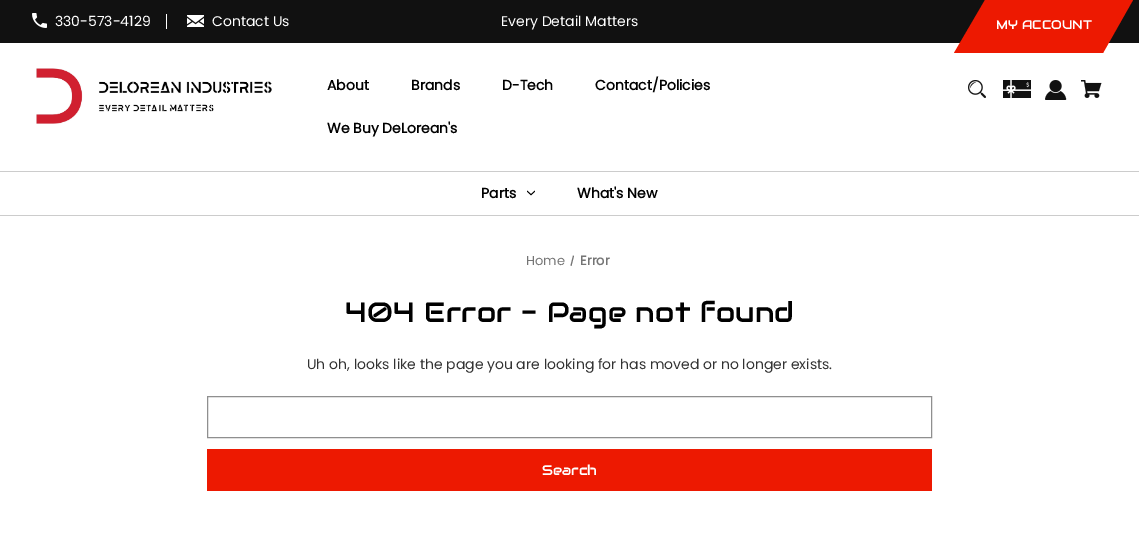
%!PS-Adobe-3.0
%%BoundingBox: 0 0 1139 533
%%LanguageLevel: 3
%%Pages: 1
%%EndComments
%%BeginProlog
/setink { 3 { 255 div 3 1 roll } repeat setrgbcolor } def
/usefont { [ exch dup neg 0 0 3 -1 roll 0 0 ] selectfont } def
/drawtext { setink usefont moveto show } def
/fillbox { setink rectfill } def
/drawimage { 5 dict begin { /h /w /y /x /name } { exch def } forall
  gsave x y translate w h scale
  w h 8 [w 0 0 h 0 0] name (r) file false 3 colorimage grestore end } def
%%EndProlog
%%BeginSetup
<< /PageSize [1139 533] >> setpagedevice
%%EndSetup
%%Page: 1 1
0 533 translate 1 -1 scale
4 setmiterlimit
0 0 1139 533 255 255 255 fillbox
0 0 1139 43 17 17 17 fillbox
(assets/img1.rgb) 32 13 15 15 drawimage
(330-573-4129) 55 26 /Poppins-Regular 14 255 255 255 drawtext
166 14 1 15 255 255 255 fillbox
(assets/img2.rgb) 187 15 17 12 drawimage
(Contact Us) 212 26 /Poppins-Regular 14 255 255 255 drawtext
(Every Detail Matters) 501 26 /Poppins-Regular 14 255 255 255 drawtext
237 25 1 setink
985 0 moveto 1133 0 lineto 1103 53 lineto 954 53 lineto closepath fill
(MY ACCOUNT) 996 29 /Audiowide-Regular 12.5 255 255 255 drawtext
(assets/img3.rgb) 36 68 236 56 drawimage
(About) 327 90 /Poppins-Bold 14 0 0 0 drawtext
(Brands) 411 90 /Poppins-Bold 14 0 0 0 drawtext
(D-Tech) 502 90 /Poppins-Bold 14 0 0 0 drawtext
(Contact/Policies) 595 90 /Poppins-Bold 14 0 0 0 drawtext
(We Buy DeLorean's) 327 133 /Poppins-Bold 14 0 0 0 drawtext
(assets/img4.rgb) 968 80 18 18 drawimage
(assets/img5.rgb) 1003 80 28 18 drawimage
(assets/img6.rgb) 1045 80 22 20 drawimage
(assets/img7.rgb) 1081 80 21 18 drawimage
0 171 1139 1 204 204 204 fillbox
0 215 1139 1 204 204 204 fillbox
(Parts) 481 198 /Poppins-Bold 14 0 0 0 drawtext
(assets/img8.rgb) 527 190 8 6 drawimage
(What's New) 577 198 /Poppins-Bold 14 0 0 0 drawtext
(Home) 526 265 /Poppins-Regular 13 117 117 117 drawtext
573 255.5 moveto 574 256 lineto 571.5 266 lineto 570.5 265.5 lineto closepath fill
(Error) 580 265 /Poppins-Bold 13 117 117 117 drawtext
/Audiowide-Regular 28 usefont
0 0 0 setink
345 322 moveto 0.25 0 (404 Error - Page not found) ashow
(Uh oh, looks like the page you are looking for has moved or no longer exists.) 307 369 /Poppins-Regular 14 51 51 51 drawtext
143 143 143 setink
207.5 396.5 724 41 rectstroke
207 449 725 42 237 25 1 fillbox
(Search) 542 475 /Audiowide-Regular 14 255 255 255 drawtext
showpage
%%EOF
